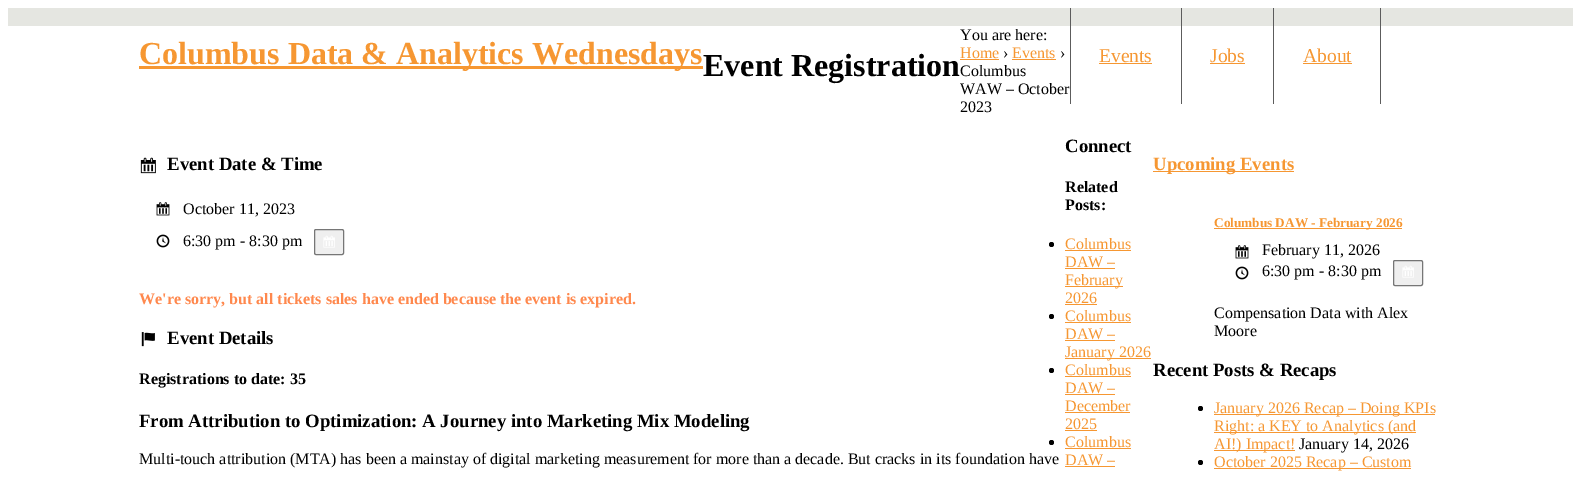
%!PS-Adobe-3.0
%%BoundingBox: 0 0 1581 479
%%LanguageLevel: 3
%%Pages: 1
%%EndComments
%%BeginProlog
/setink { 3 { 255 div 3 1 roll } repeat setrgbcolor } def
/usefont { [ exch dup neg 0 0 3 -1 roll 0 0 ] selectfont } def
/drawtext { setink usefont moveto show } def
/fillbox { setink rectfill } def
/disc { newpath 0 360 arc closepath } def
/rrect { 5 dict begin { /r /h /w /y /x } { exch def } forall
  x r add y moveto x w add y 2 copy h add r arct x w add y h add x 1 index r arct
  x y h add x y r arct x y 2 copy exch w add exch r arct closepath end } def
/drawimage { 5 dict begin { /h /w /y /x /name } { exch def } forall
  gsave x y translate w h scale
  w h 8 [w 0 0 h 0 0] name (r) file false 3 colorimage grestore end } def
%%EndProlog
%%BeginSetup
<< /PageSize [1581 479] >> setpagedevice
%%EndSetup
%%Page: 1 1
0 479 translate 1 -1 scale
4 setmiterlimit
0 0 1581 479 255 255 255 fillbox
(You are here:) 960 40 /LiberationSerif-Regular 16 0 0 0 drawtext
(Home) 960 58 /LiberationSerif-Regular 16 246 151 50 drawtext
960 59 39 1 246 151 50 fillbox
(›) 1003 58 /LiberationSerif-Regular 16 0 0 0 drawtext
(Events) 1012 58 /LiberationSerif-Regular 16 246 151 50 drawtext
1012 59 44 1 246 151 50 fillbox
(›) 1060 58 /LiberationSerif-Regular 16 0 0 0 drawtext
(Columbus) 960 76 /LiberationSerif-Regular 16 0 0 0 drawtext
(WAW – October) 960 94 /LiberationSerif-Regular 16 0 0 0 drawtext
(2023) 960 112 /LiberationSerif-Regular 16 0 0 0 drawtext
8 8 1565 18 229 230 225 fillbox
139 66 564 3 246 151 50 fillbox
(Columbus Data & Analytics Wednesdays) 139 64 /LiberationSerif-Bold 32 246 151 50 drawtext
1181 8 1 96 92 92 92 fillbox
1070 8 1 96 92 92 92 fillbox
(Events) 1099 62 /LiberationSerif-Regular 19.5 246 151 50 drawtext
1099 63 53 1 246 151 50 fillbox
1273 8 1 96 92 92 92 fillbox
(Jobs) 1210 62 /LiberationSerif-Regular 19.5 246 151 50 drawtext
1210 63 35 1 246 151 50 fillbox
1380 8 1 96 92 92 92 fillbox
(About) 1303 62 /LiberationSerif-Regular 19.5 246 151 50 drawtext
1303 63 49 1 246 151 50 fillbox
(Event Registration) 703 76 /LiberationSerif-Bold 32 0 0 0 drawtext
(Connect) 1065 152 /LiberationSerif-Bold 18.75 0 0 0 drawtext
(assets/img1.rgb) 140 157 16 17 drawimage
(Event Date & Time) 167 170 /LiberationSerif-Bold 18.75 0 0 0 drawtext
(assets/img2.rgb) 156 202 14 14 drawimage
(October 11, 2023) 183 214 /LiberationSerif-Regular 16 0 0 0 drawtext
(assets/img3.rgb) 156 234 14 14 drawimage
(6:30 pm - 8:30 pm) 183 246 /LiberationSerif-Regular 16 0 0 0 drawtext
239 239 239 setink
314.5 229.5 29 25 1.5 rrect gsave fill grestore
118 118 118 setink
stroke
(assets/img4.rgb) 323 235 12 13 drawimage
(We're sorry, but all tickets sales have ended because the event is expired.) 139 304 /LiberationSerif-Bold 16 255 136 77 drawtext
(assets/img5.rgb) 141 332 14 15 drawimage
(Event Details) 167 344 /LiberationSerif-Bold 18.75 0 0 0 drawtext
(Registrations to date: 35) 139 384 /LiberationSerif-Bold 16 0 0 0 drawtext
(From Attribution to Optimization: A Journey into Marketing Mix Modeling) 139 427 /LiberationSerif-Bold 18.75 0 0 0 drawtext
(Multi-touch attribution \(MTA\) has been a mainstay of digital marketing measurement for more than a decade. But cracks in its foundation have) 139 464 /LiberationSerif-Regular 16 0 0 0 drawtext
(Related) 1065 192 /LiberationSerif-Bold 16 0 0 0 drawtext
(Posts:) 1065 210 /LiberationSerif-Bold 16 0 0 0 drawtext
1051.5 244.5 2.5 disc fill
(Columbus) 1065 249 /LiberationSerif-Regular 16 246 151 50 drawtext
1065 250 66 1 246 151 50 fillbox
(DAW –) 1065 267 /LiberationSerif-Regular 16 246 151 50 drawtext
1065 268 50 1 246 151 50 fillbox
1065 286 58 1 246 151 50 fillbox
(February) 1065 285 /LiberationSerif-Regular 16 246 151 50 drawtext
(2026) 1065 303 /LiberationSerif-Regular 16 246 151 50 drawtext
1065 304 32 1 246 151 50 fillbox
0 0 0 setink
1051.5 316.5 2.5 disc fill
(Columbus) 1065 321 /LiberationSerif-Regular 16 246 151 50 drawtext
1065 322 66 1 246 151 50 fillbox
(DAW –) 1065 339 /LiberationSerif-Regular 16 246 151 50 drawtext
1065 340 50 1 246 151 50 fillbox
1065 358 86 1 246 151 50 fillbox
(January 2026) 1065 357 /LiberationSerif-Regular 16 246 151 50 drawtext
0 0 0 setink
1051.5 370.5 2.5 disc fill
(Columbus) 1065 375 /LiberationSerif-Regular 16 246 151 50 drawtext
1065 376 66 1 246 151 50 fillbox
(DAW –) 1065 393 /LiberationSerif-Regular 16 246 151 50 drawtext
1065 394 50 1 246 151 50 fillbox
(December) 1065 411 /LiberationSerif-Regular 16 246 151 50 drawtext
1065 412 65 1 246 151 50 fillbox
(2025) 1065 429 /LiberationSerif-Regular 16 246 151 50 drawtext
1065 430 32 1 246 151 50 fillbox
0 0 0 setink
1051.5 442.5 2.5 disc fill
(Columbus) 1065 447 /LiberationSerif-Regular 16 246 151 50 drawtext
1065 448 66 1 246 151 50 fillbox
(DAW –) 1065 465 /LiberationSerif-Regular 16 246 151 50 drawtext
1065 466 50 1 246 151 50 fillbox
1153 171 141 1 246 151 50 fillbox
(Upcoming Events) 1153 170 /LiberationSerif-Bold 18.75 246 151 50 drawtext
1214 228 188 1 246 151 50 fillbox
(Columbus DAW - February 2026) 1214 227 /LiberationSerif-Bold 13.25 246 151 50 drawtext
(assets/img2.rgb) 1235 245 14 14 drawimage
(February 11, 2026) 1262 255 /LiberationSerif-Regular 16 0 0 0 drawtext
(assets/img3.rgb) 1235 266 14 14 drawimage
(6:30 pm - 8:30 pm) 1262 276 /LiberationSerif-Regular 16 0 0 0 drawtext
239 239 239 setink
1393.5 260.5 29 25 1.5 rrect gsave fill grestore
118 118 118 setink
stroke
(assets/img4.rgb) 1402 265 12 13 drawimage
(Compensation Data with Alex) 1214 318 /LiberationSerif-Regular 16 0 0 0 drawtext
(Moore) 1214 336 /LiberationSerif-Regular 16 0 0 0 drawtext
(Recent Posts & Recaps) 1153 376 /LiberationSerif-Bold 18.75 0 0 0 drawtext
1200.5 408.5 2.5 disc fill
1214 414 221 1 246 151 50 fillbox
(January 2026 Recap – Doing KPIs) 1214 413 /LiberationSerif-Regular 16 246 151 50 drawtext
1214 432 202 1 246 151 50 fillbox
(Right: a KEY to Analytics \(and) 1214 431 /LiberationSerif-Regular 16 246 151 50 drawtext
1214 450 81 1 246 151 50 fillbox
(AI!\) Impact!) 1214 449 /LiberationSerif-Regular 16 246 151 50 drawtext
(January 14, 2026) 1299 449 /LiberationSerif-Regular 16 0 0 0 drawtext
1200.5 462.5 2.5 disc fill
1214 468 197 1 246 151 50 fillbox
(October 2025 Recap – Custom) 1214 467 /LiberationSerif-Regular 16 246 151 50 drawtext
showpage
%%EOF
